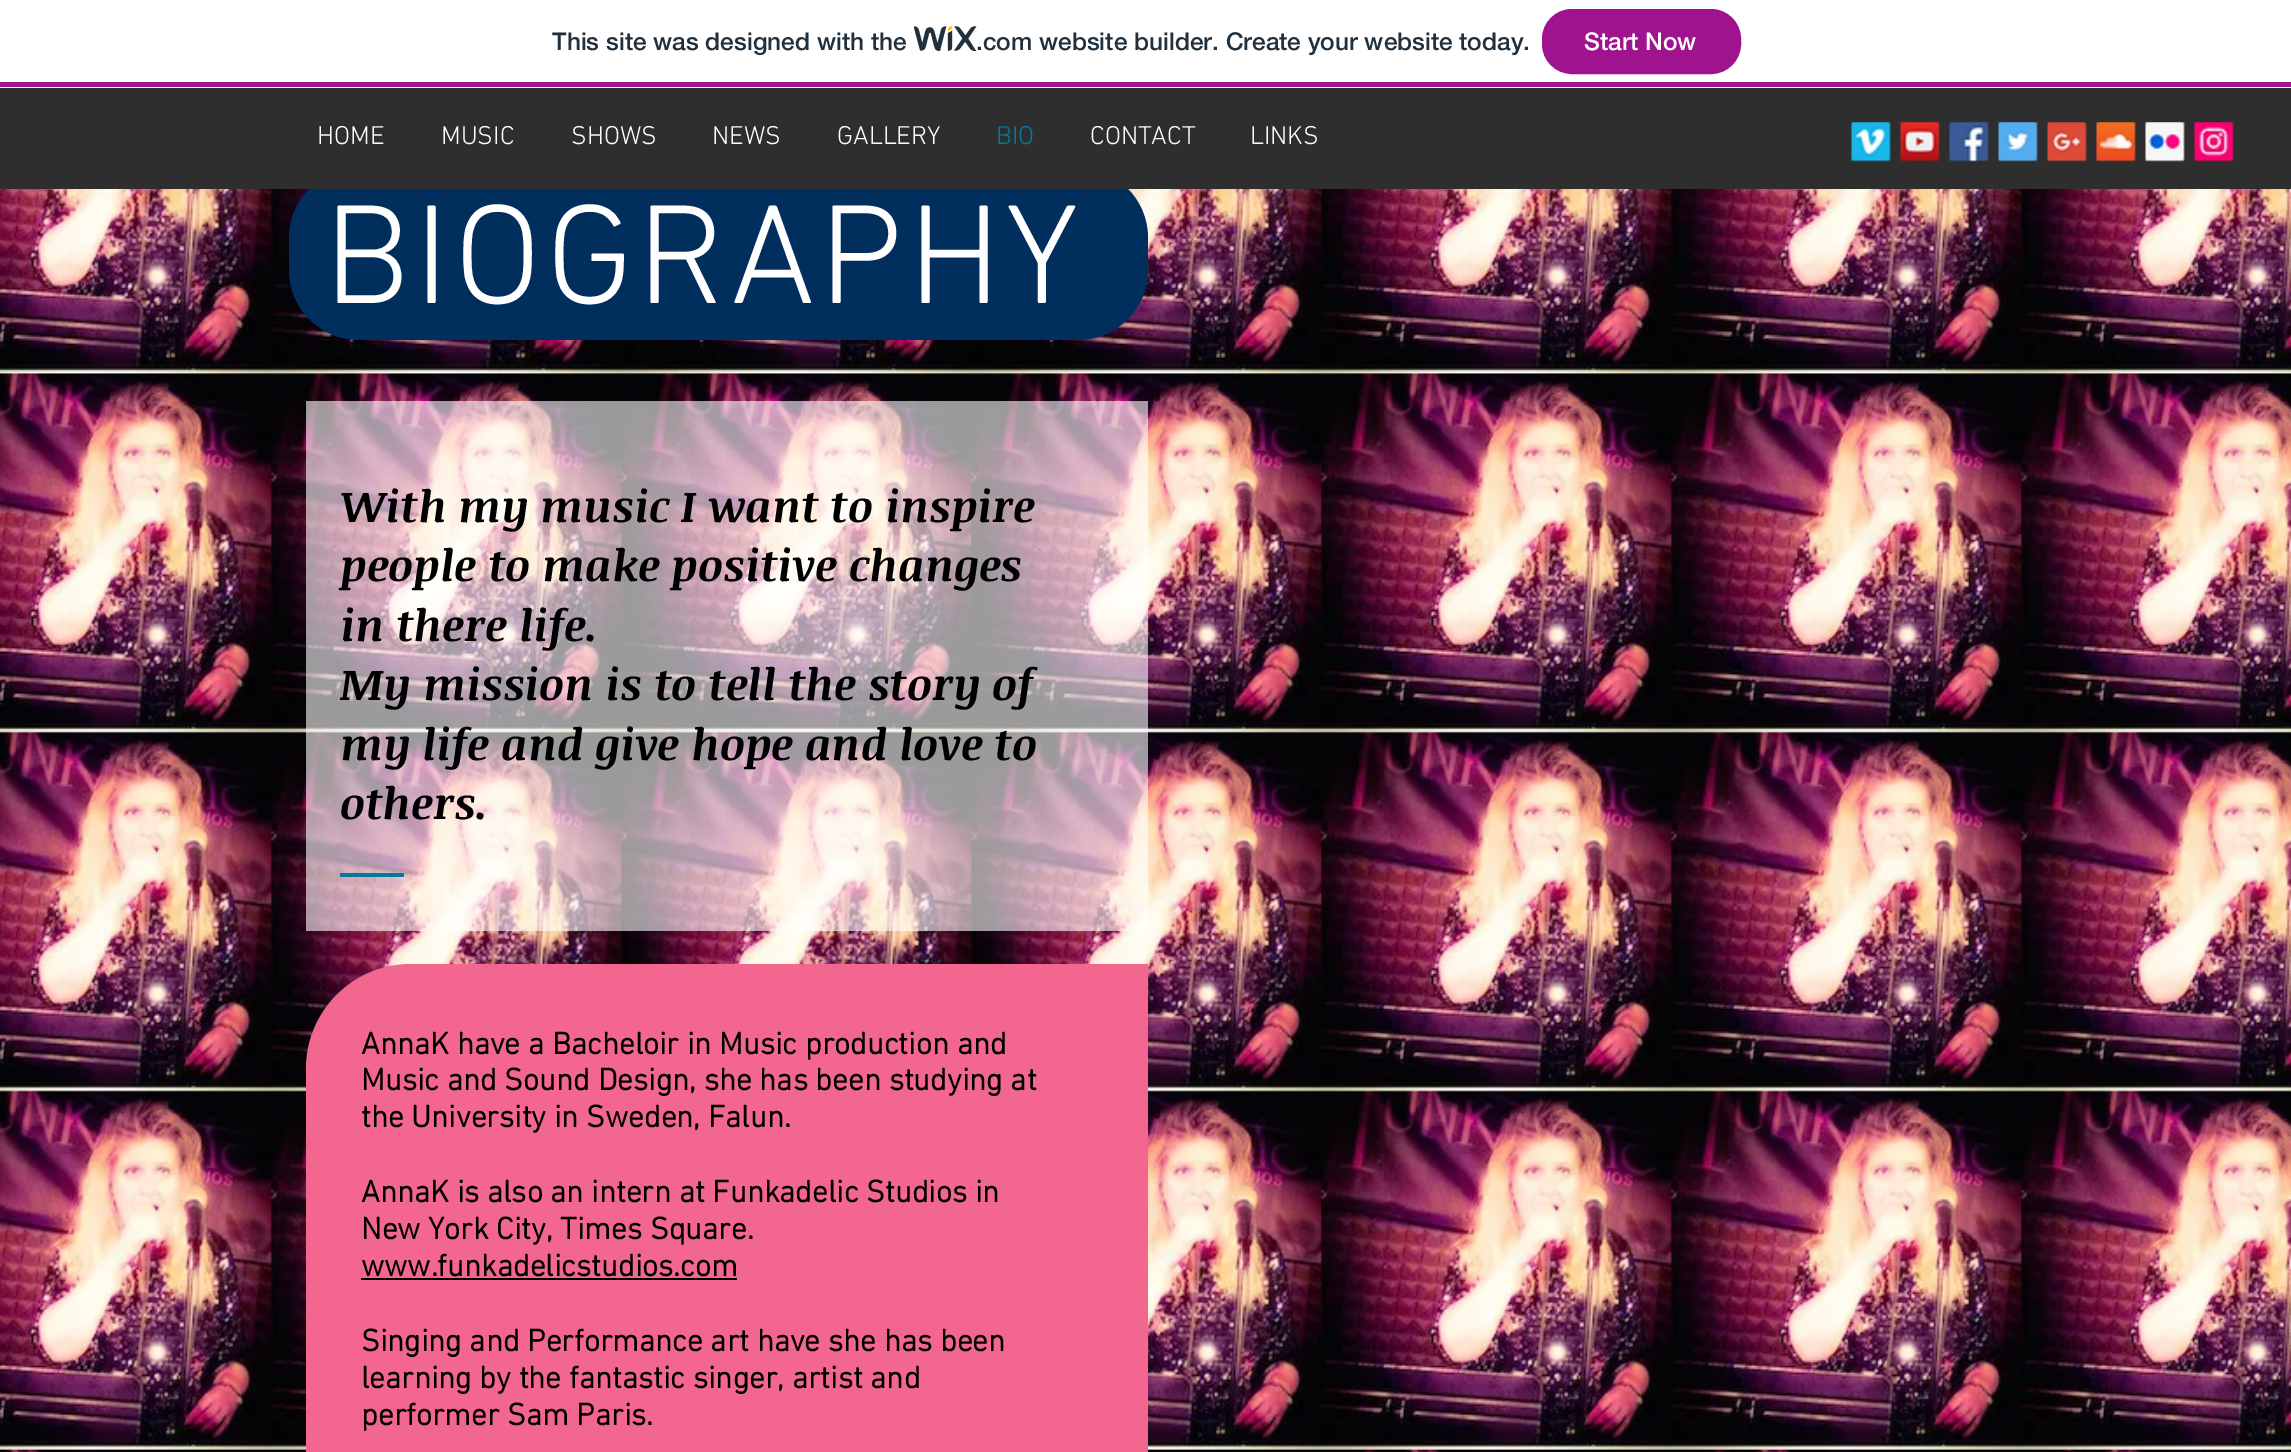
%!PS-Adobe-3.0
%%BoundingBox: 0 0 2291 1452
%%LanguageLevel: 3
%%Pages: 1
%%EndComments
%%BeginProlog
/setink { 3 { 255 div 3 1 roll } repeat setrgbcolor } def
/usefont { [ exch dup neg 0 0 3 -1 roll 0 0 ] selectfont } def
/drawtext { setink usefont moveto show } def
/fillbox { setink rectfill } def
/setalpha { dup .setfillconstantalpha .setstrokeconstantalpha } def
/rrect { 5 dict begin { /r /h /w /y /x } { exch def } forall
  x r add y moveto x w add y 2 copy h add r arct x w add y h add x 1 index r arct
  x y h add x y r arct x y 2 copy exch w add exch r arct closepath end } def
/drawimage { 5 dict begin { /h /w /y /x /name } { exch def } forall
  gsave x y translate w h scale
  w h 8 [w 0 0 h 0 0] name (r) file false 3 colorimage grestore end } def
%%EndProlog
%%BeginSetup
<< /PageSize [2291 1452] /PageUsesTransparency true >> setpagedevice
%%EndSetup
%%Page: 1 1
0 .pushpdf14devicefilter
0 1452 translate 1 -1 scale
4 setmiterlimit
0 0 2291 1452 255 255 255 fillbox
0 82 2291 5 160 19 142 fillbox
(This site was designed with the) 552 50 /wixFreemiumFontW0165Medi-Medium 24.5 32 48 60 drawtext
(assets/img1.rgb) 914 26 63 26 drawimage
(.com website builder. Create your website today.) 976 50 /wixFreemiumFontW0165Medi-Medium 24.5 32 48 60 drawtext
160 19 142 setink
1543 10 197 63 29 rrect gsave fill grestore
2 setlinewidth
stroke
(Start Now) 1584 50 /wixFreemiumFontW0165Medi-Medium 24.5 255 255 255 drawtext
(assets/img10.rgb) 0 189 2291 1263 drawimage
0 46 93 setink
289 168 859 172 70 rrect fill
0 88 2291 101 47 46 46 fillbox
(HOME) 317 144 /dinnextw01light-Light 26.25 255 255 255 drawtext
(MUSIC) 441 144 /dinnextw01light-Light 26.25 255 255 255 drawtext
(SHOWS) 571 144 /dinnextw01light-Light 26.25 255 255 255 drawtext
(NEWS) 712 144 /dinnextw01light-Light 26.25 255 255 255 drawtext
(GALLERY) 837 144 /dinnextw01light-Light 26.25 255 255 255 drawtext
(BIO) 996 144 /dinnextw01light-Light 26.25 0 123 154 drawtext
(CONTACT) 1090 144 /dinnextw01light-Light 26.25 255 255 255 drawtext
(LINKS) 1250 144 /dinnextw01light-Light 26.25 255 255 255 drawtext
(assets/img2.rgb) 1851 122 40 40 drawimage
(assets/img3.rgb) 1900 122 40 40 drawimage
(assets/img4.rgb) 1949 122 40 40 drawimage
(assets/img5.rgb) 1998 122 40 40 drawimage
(assets/img6.rgb) 2047 122 40 40 drawimage
(assets/img7.rgb) 2096 122 40 40 drawimage
(assets/img8.rgb) 2145 122 40 40 drawimage
(assets/img9.rgb) 2194 122 40 40 drawimage
/dinnextw01light-Light 143.5 usefont
324 303 moveto 4.25 0 (BIOGRAPHY) ashow
0.6 setalpha
306 401 842 530 255 255 255 fillbox
1 setalpha
(With my music I want to inspire) 340 522 /NoticiaText-BoldItalic 43.75 0 0 0 drawtext
(people to make positive changes) 340 581 /NoticiaText-BoldItalic 43.75 0 0 0 drawtext
(in there life.) 340 641 /NoticiaText-BoldItalic 43.75 0 0 0 drawtext
(My mission is to tell the story of) 340 700 /NoticiaText-BoldItalic 43.75 0 0 0 drawtext
(my life and give hope and love to) 340 760 /NoticiaText-BoldItalic 43.75 0 0 0 drawtext
(others.) 340 819 /NoticiaText-BoldItalic 43.75 0 0 0 drawtext
340 873 64 4 0 123 154 fillbox
242 102 143 setink
411 964 moveto 1148 964 lineto 1148 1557 lineto 306 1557 lineto 306 1069 lineto 306 1011 353 964 411 964 curveto closepath fill
(AnnaK have a Bacheloir in Music production and) 361 1054 /dinnextw01light-Bold 31.5 0 0 0 drawtext
(Music and Sound Design, she has been studying at) 361 1090 /dinnextw01light-Bold 31.5 0 0 0 drawtext
(the University in Sweden, Falun.) 361 1127 /dinnextw01light-Bold 31.5 0 0 0 drawtext
(AnnaK is also an intern at Funkadelic Studios in) 361 1202 /dinnextw01light-Bold 31.5 0 0 0 drawtext
(New York City, Times Square.) 361 1239 /dinnextw01light-Bold 31.5 0 0 0 drawtext
(www.funkadelicstudios.com) 361 1276 /dinnextw01light-Bold 31.5 0 0 0 drawtext
361 1278 376 2 0 0 0 fillbox
(Singing and Performance art have she has been) 361 1351 /dinnextw01light-Bold 31.5 0 0 0 drawtext
(learning by the fantastic singer, artist and) 361 1388 /dinnextw01light-Bold 31.5 0 0 0 drawtext
(performer Sam Paris.) 361 1425 /dinnextw01light-Bold 31.5 0 0 0 drawtext
.poppdf14devicefilter showpage
%%EOF
